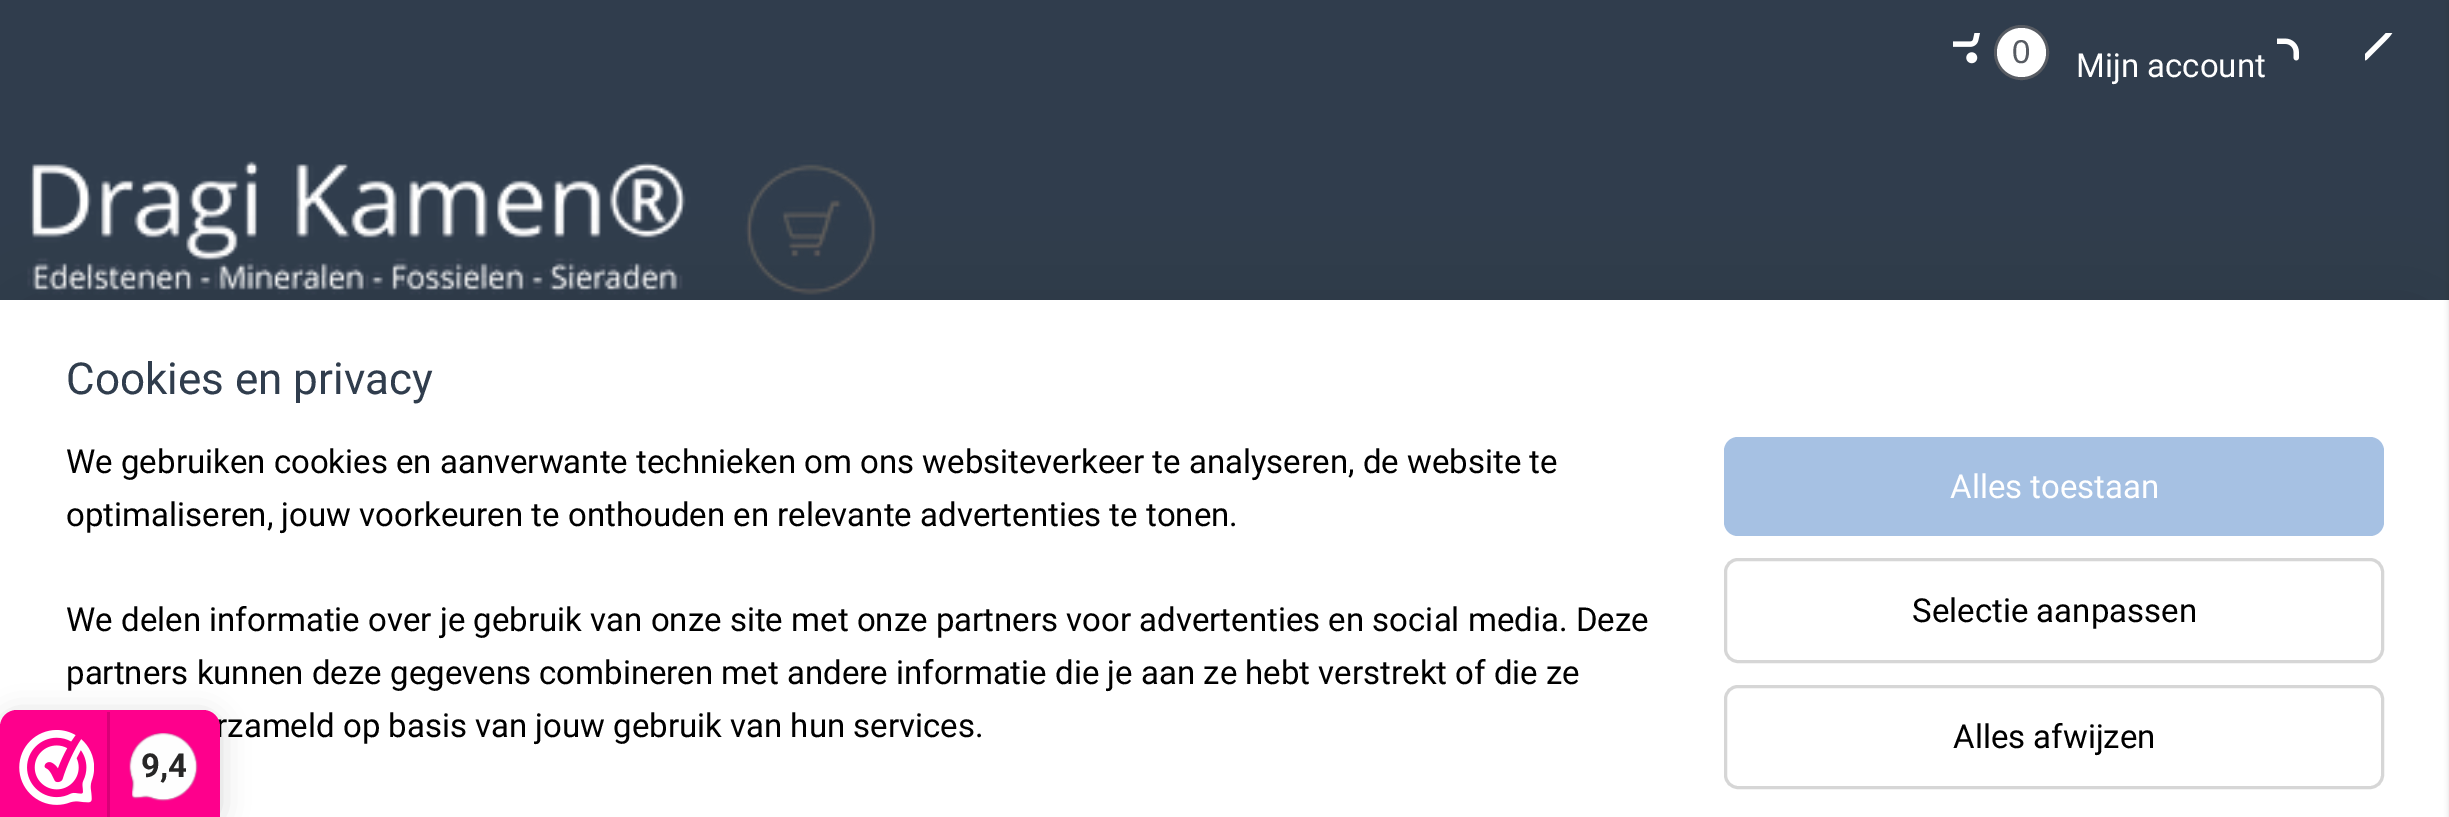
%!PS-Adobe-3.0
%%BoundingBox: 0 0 2449 817
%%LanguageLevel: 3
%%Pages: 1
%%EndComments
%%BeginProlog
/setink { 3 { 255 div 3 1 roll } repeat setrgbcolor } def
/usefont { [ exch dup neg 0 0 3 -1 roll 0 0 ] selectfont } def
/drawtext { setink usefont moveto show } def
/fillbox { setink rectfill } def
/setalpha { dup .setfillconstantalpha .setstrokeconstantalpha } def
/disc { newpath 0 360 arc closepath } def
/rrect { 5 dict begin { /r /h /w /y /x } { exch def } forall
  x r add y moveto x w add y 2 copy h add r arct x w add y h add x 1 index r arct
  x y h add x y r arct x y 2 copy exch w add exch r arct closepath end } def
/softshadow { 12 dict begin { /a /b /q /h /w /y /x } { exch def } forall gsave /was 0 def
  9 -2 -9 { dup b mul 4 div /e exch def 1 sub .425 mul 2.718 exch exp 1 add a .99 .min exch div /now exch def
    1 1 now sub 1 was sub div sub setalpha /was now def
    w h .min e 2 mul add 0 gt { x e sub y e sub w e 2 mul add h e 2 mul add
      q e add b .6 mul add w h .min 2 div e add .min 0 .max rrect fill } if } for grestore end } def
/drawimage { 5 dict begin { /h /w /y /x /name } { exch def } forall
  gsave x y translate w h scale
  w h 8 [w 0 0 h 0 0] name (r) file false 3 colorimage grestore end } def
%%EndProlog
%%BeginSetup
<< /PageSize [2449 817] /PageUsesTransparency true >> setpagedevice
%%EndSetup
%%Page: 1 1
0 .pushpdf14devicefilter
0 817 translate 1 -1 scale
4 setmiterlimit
0 0 2449 817 48 61 77 fillbox
(assets/img1.rgb) 1953 33 27 31 drawimage
87 91 98 setink
3 setlinewidth
2021.5 52.5 26 disc stroke
255 255 255 setink
2021.5 52.5 24.5 disc fill
(0) 2012 63 /LiberationSans-Regular 33 87 91 98 drawtext
(assets/img2.rgb) 2365 33 28 28 drawimage
(assets/img4.rgb) 27 160 849 135 drawimage
0 0 0 setink
28 327 2395 465 0 49.5 0.2 softshadow
0 300 2449 517 255 255 255 fillbox
0 0 0 setink
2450 3 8 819 0 3 0.2 softshadow
(assets/img3.rgb) 2277 38 22 23 drawimage
(Mijn account) 2076 77 /Roboto-Regular 33 255 255 255 drawtext
(Cookies en privacy) 66 394 /Roboto-Regular 44 48 61 77 drawtext
(We gebruiken cookies en aanverwante technieken om ons websiteverkeer te analyseren, de website te) 66 473 /Roboto-Regular 33 0 0 0 drawtext
(optimaliseren, jouw voorkeuren te onthouden en relevante advertenties te tonen.) 66 526 /Roboto-Regular 33 0 0 0 drawtext
(We delen informatie over je gebruik van onze site met onze partners voor advertenties en social media. Deze) 66 631 /Roboto-Regular 33 0 0 0 drawtext
(partners kunnen deze gegevens combineren met andere informatie die je aan ze hebt verstrekt of die ze) 66 684 /Roboto-Regular 33 0 0 0 drawtext
(rzameld op basis van jouw gebruik van hun services.) 216 737 /Roboto-Regular 33 0 0 0 drawtext
166 193 227 setink
1724 437 660 99 14 rrect fill
(Alles toestaan) 1950 498 /Roboto-Regular 33 255 255 255 drawtext
214 214 214 setink
1725.5 559.5 657 102 12.5 rrect stroke
(Selectie aanpassen) 1912 622 /Roboto-Regular 33 0 0 0 drawtext
214 214 214 setink
1725.5 686.5 657 101 12.5 rrect stroke
(Alles afwijzen) 1953 748 /Roboto-Regular 33 0 0 0 drawtext
0 715 220 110 17 14 0.15 softshadow
254 0 140 setink
17 710 moveto 203 710 lineto 212.5 710 220 717.5 220 727 curveto 220 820 lineto 0 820 lineto 0 727 lineto 0 717.5 7.5 710 17 710 curveto closepath fill
(assets/img5.rgb) 19 730 75 75 drawimage
107 712 3 105 216 0 119 fillbox
(assets/img6.rgb) 129 733 69 69 drawimage
(9,4) 141 777 /Roboto-Bold 33 39 38 38 drawtext
.poppdf14devicefilter showpage
%%EOF
